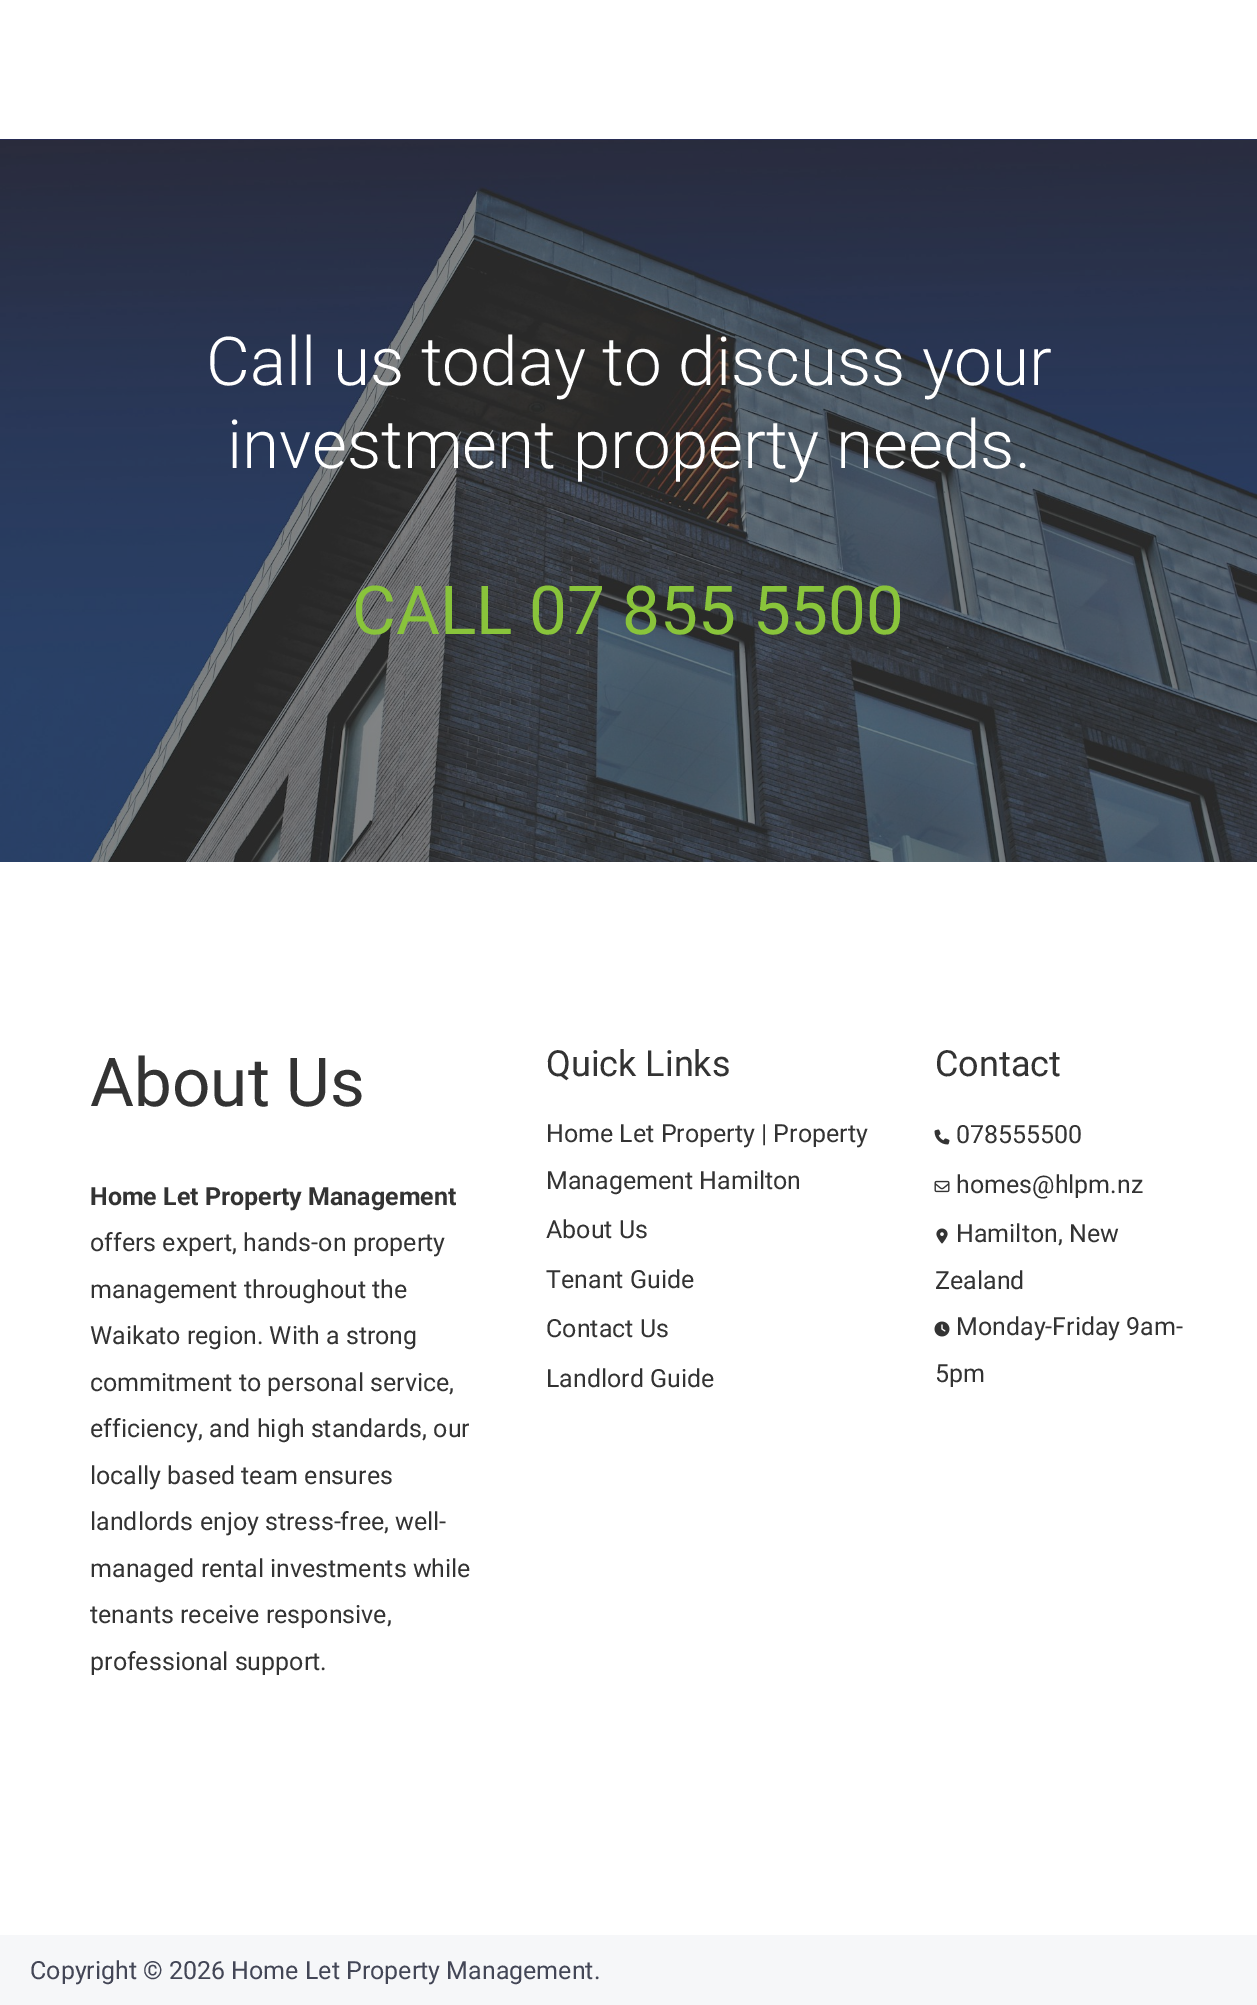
%!PS-Adobe-3.0
%%BoundingBox: 0 0 1257 2005
%%LanguageLevel: 3
%%Pages: 1
%%EndComments
%%BeginProlog
/setink { 3 { 255 div 3 1 roll } repeat setrgbcolor } def
/usefont { [ exch dup neg 0 0 3 -1 roll 0 0 ] selectfont } def
/drawtext { setink usefont moveto show } def
/fillbox { setink rectfill } def
/drawimage { 5 dict begin { /h /w /y /x /name } { exch def } forall
  gsave x y translate w h scale
  w h 8 [w 0 0 h 0 0] name (r) file false 3 colorimage grestore end } def
%%EndProlog
%%BeginSetup
<< /PageSize [1257 2005] >> setpagedevice
%%EndSetup
%%Page: 1 1
0 2005 translate 1 -1 scale
4 setmiterlimit
0 0 1257 2005 255 255 255 fillbox
(assets/img1.rgb) 0 139 1257 723 drawimage
(Call us today to discuss your) 206 385 /Roboto-Light 67.5 255 255 255 drawtext
(investment property needs.) 227 468 /Roboto-Light 67.5 255 255 255 drawtext
(CALL 07 855 5500) 352 634 /Roboto-Regular 67.5 137 196 59 drawtext
(About Us) 90 1106 /Roboto-Regular 67.5 51 51 51 drawtext
(Home Let Property Management) 90 1205 /Roboto-Bold 25 51 51 51 drawtext
(offers expert, hands-on property) 90 1251 /Roboto-Regular 25 51 51 51 drawtext
(management throughout the) 90 1298 /Roboto-Regular 25 51 51 51 drawtext
(Waikato region. With a strong) 90 1344 /Roboto-Regular 25 51 51 51 drawtext
(commitment to personal service,) 90 1391 /Roboto-Regular 25 51 51 51 drawtext
(efficiency, and high standards, our) 90 1437 /Roboto-Regular 25 51 51 51 drawtext
(locally based team ensures) 90 1484 /Roboto-Regular 25 51 51 51 drawtext
(landlords enjoy stress-free, well-) 90 1530 /Roboto-Regular 25 51 51 51 drawtext
(managed rental investments while) 90 1577 /Roboto-Regular 25 51 51 51 drawtext
(tenants receive responsive,) 90 1623 /Roboto-Regular 25 51 51 51 drawtext
(professional support.) 90 1670 /Roboto-Regular 25 51 51 51 drawtext
(Quick Links) 546 1076 /Roboto-Regular 36 51 51 51 drawtext
(Home Let Property | Property) 546 1142 /Roboto-Regular 25 51 51 51 drawtext
(Management Hamilton) 546 1189 /Roboto-Regular 25 51 51 51 drawtext
(About Us) 546 1238 /Roboto-Regular 25 51 51 51 drawtext
(Tenant Guide) 546 1288 /Roboto-Regular 25 51 51 51 drawtext
(Contact Us) 546 1337 /Roboto-Regular 25 51 51 51 drawtext
(Landlord Guide) 546 1387 /Roboto-Regular 25 51 51 51 drawtext
(Contact) 935 1076 /Roboto-Regular 36 51 51 51 drawtext
(assets/img2.rgb) 934 1129 16 16 drawimage
(078555500) 956 1143 /Roboto-Regular 25 51 51 51 drawtext
(assets/img3.rgb) 934 1180 16 13 drawimage
(homes@hlpm.nz) 956 1193 /Roboto-Regular 25 51 51 51 drawtext
(assets/img4.rgb) 936 1228 12 16 drawimage
(Hamilton, New) 956 1242 /Roboto-Regular 25 51 51 51 drawtext
(Zealand) 935 1289 /Roboto-Regular 25 51 51 51 drawtext
(assets/img5.rgb) 934 1321 16 16 drawimage
(Monday-Friday 9am-) 956 1335 /Roboto-Regular 25 51 51 51 drawtext
(5pm) 935 1382 /Roboto-Regular 25 51 51 51 drawtext
0 1935 1257 70 246 247 249 fillbox
(Copyright © 2026 Home Let Property Management.) 30 1979 /Roboto-Regular 25 67 70 86 drawtext
showpage
%%EOF
